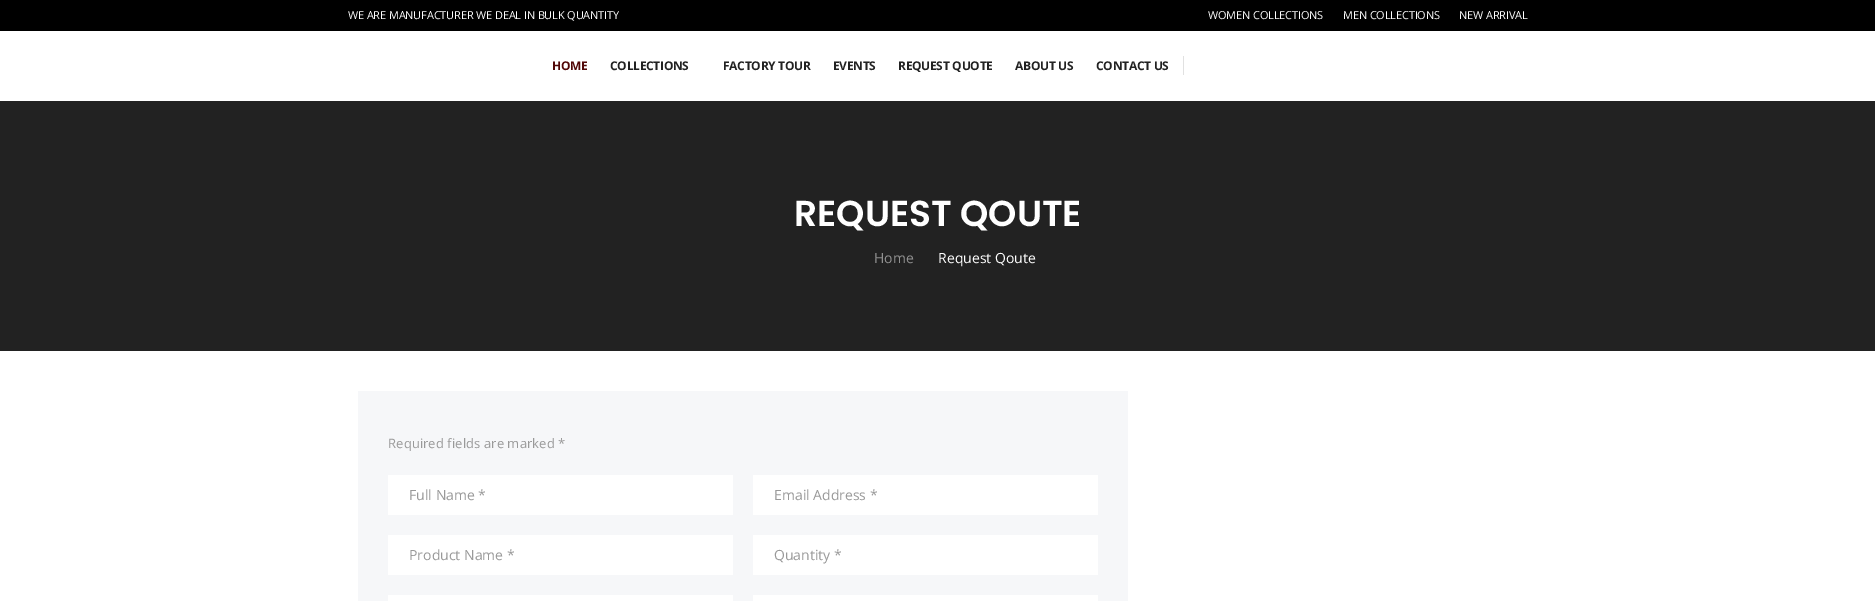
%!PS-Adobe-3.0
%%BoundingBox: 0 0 1875 601
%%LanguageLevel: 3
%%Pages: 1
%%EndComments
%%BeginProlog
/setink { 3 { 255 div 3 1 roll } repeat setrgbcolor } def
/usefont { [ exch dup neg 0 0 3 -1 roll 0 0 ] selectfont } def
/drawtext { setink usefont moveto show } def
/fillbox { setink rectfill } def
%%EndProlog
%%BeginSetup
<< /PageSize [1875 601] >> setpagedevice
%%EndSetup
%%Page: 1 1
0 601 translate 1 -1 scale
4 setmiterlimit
0 0 1875 601 255 255 255 fillbox
0 0 1875 31 0 0 0 fillbox
/OpenSans-Regular 11 usefont
255 255 255 setink
348 19 moveto -0.15 0 (WE ARE MANUFACTURER WE DEAL IN BULK QUANTITY) ashow
1208 19 moveto -0.15 0 (WOMEN COLLECTIONS) ashow
1343 19 moveto -0.15 0 (MEN COLLECTIONS) ashow
1459 19 moveto -0.15 0 (NEW ARRIVAL) ashow
/OpenSans-Bold 12 usefont
82 8 8 setink
552 70 moveto -0.3 0 (HOME) ashow
34 34 34 setink
610 70 moveto -0.3 0 (COLLECTIONS) ashow
723 70 moveto -0.3 0 (FACTORY TOUR) ashow
833 70 moveto -0.3 0 (EVENTS) ashow
898 70 moveto -0.3 0 (REQUEST QUOTE) ashow
1015 70 moveto -0.3 0 (ABOUT US) ashow
1096 70 moveto -0.3 0 (CONTACT US) ashow
1183 56 1 19 225 225 225 fillbox
0 101 1875 250 34 34 34 fillbox
(REQUEST QOUTE) 794 226 /Poppins-SemiBold 36 255 255 255 drawtext
(Home) 874 263 /OpenSans-Regular 14 145 145 145 drawtext
(Request Qoute) 938 263 /OpenSans-Regular 14 255 255 255 drawtext
358 391 770 210 246 247 249 fillbox
/OpenSans-Regular 13 usefont
153 153 153 setink
388 448 moveto 0.1 0 (Required fields are marked *) ashow
388 475 345 40 255 255 255 fillbox
(Full Name *) 409 500 /OpenSans-Regular 14 153 153 153 drawtext
753 475 345 40 255 255 255 fillbox
(Email Address *) 774 500 /OpenSans-Regular 14 153 153 153 drawtext
388 535 345 40 255 255 255 fillbox
(Product Name *) 409 560 /OpenSans-Regular 14 153 153 153 drawtext
753 535 345 40 255 255 255 fillbox
(Quantity *) 774 560 /OpenSans-Regular 14 153 153 153 drawtext
388 595 345 6 255 255 255 fillbox
753 595 345 6 255 255 255 fillbox
showpage
%%EOF
